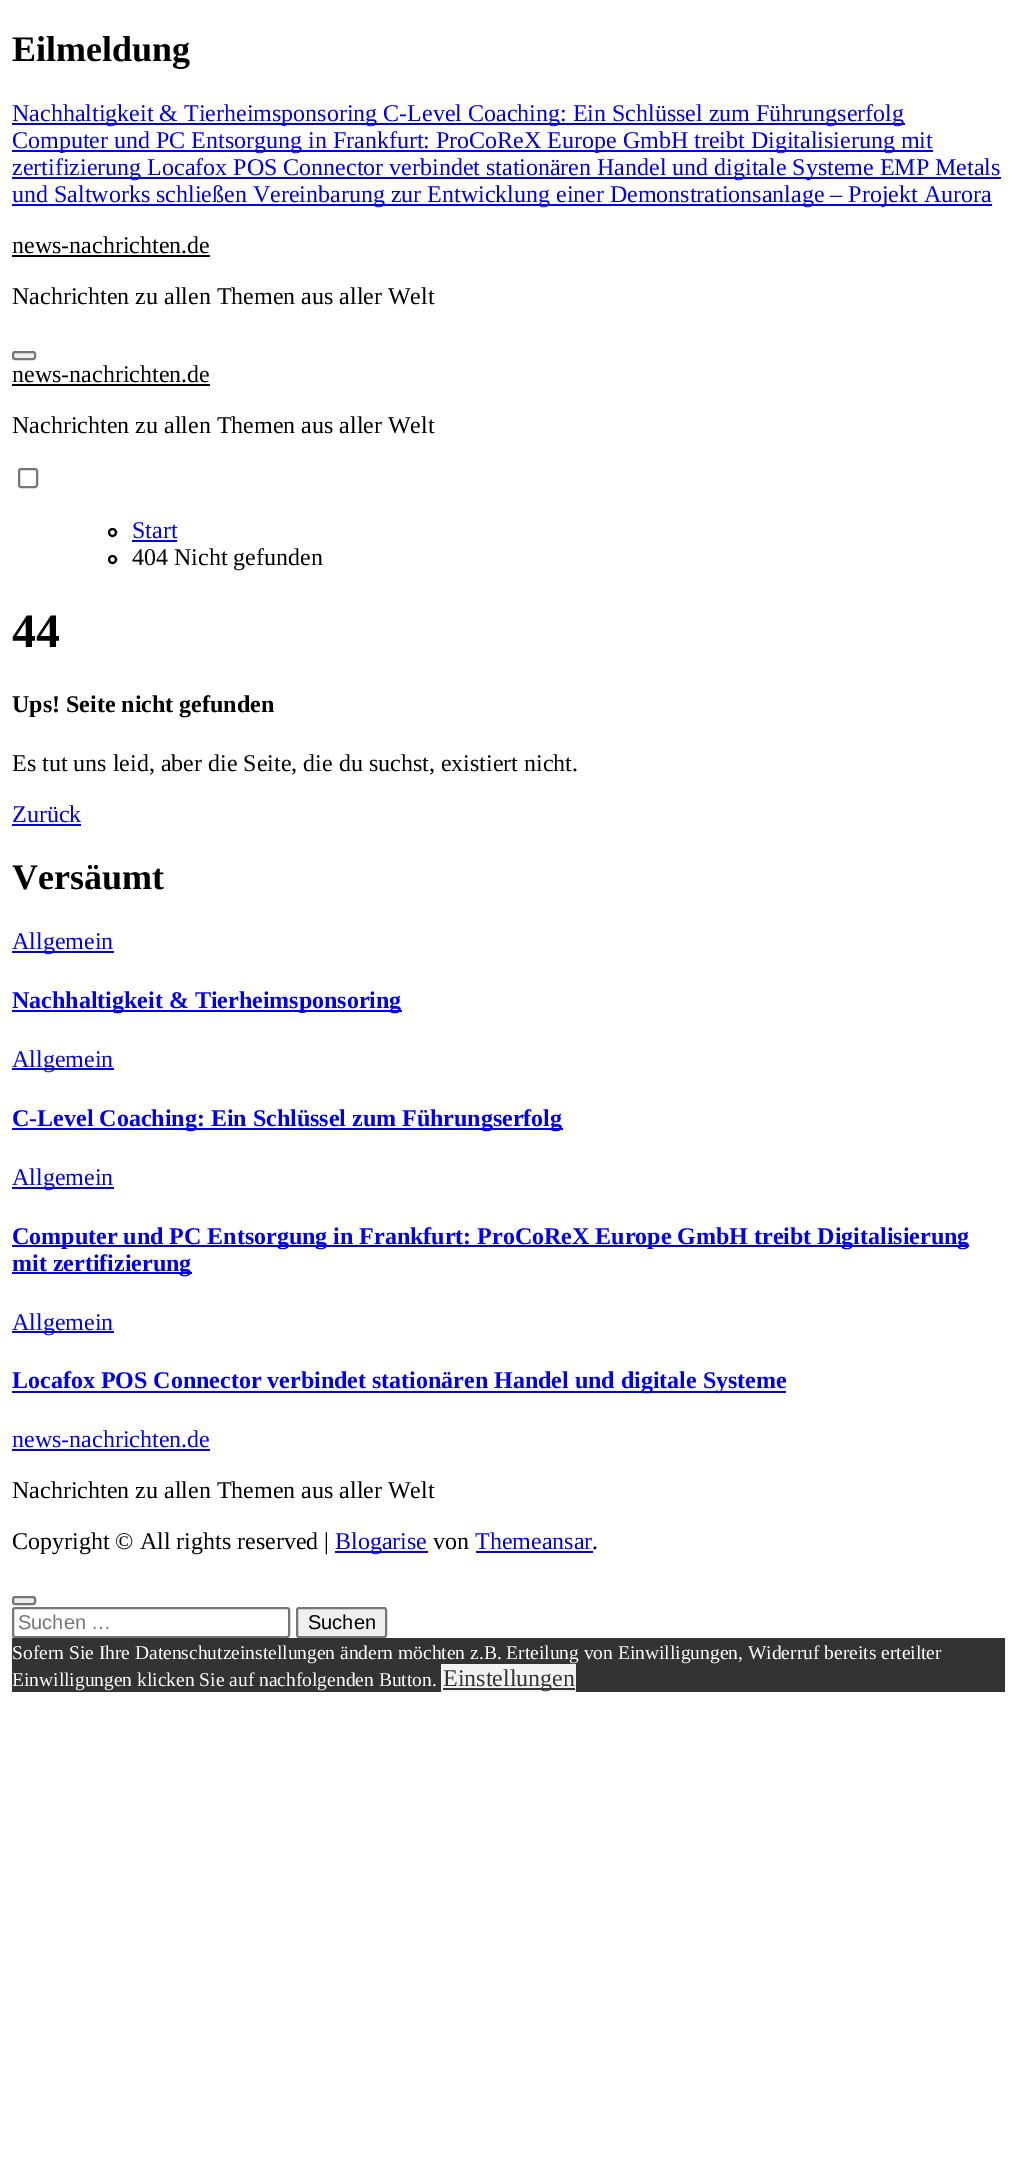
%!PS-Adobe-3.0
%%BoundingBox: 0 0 1017 2160
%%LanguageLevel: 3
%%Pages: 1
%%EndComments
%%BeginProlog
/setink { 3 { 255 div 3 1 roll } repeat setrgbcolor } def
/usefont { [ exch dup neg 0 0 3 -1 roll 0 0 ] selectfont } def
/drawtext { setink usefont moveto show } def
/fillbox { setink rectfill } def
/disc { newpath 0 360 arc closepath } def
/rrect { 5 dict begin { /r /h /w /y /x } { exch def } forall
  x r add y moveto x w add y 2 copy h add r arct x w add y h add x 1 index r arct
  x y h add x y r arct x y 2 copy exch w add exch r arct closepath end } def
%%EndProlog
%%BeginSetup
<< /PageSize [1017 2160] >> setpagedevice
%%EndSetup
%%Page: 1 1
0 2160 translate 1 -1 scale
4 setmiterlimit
0 0 1017 2160 255 255 255 fillbox
(Eilmeldung) 12 61 /LiberationSerif-Bold 36 0 0 0 drawtext
12 123 893 2 0 0 238 fillbox
(Nachhaltigkeit & Tierheimsponsoring C-Level Coaching: Ein Schlüssel zum Führungserfolg) 12 121 /LiberationSerif-Regular 24 0 0 238 drawtext
12 150 921 2 0 0 238 fillbox
(Computer und PC Entsorgung in Frankfurt: ProCoReX Europe GmbH treibt Digitalisierung mit) 12 148 /LiberationSerif-Regular 24 0 0 238 drawtext
12 177 989 2 0 0 238 fillbox
(zertifizierung Locafox POS Connector verbindet stationären Handel und digitale Systeme EMP Metals) 12 175 /LiberationSerif-Regular 24 0 0 238 drawtext
12 204 980 2 0 0 238 fillbox
(und Saltworks schließen Vereinbarung zur Entwicklung einer Demonstrationsanlage – Projekt Aurora) 12 202 /LiberationSerif-Regular 24 0 0 238 drawtext
(news-nachrichten.de) 12 253 /LiberationSerif-Regular 24 0 0 0 drawtext
12 255 198 2 0 0 0 fillbox
(Nachrichten zu allen Themen aus aller Welt) 12 304 /LiberationSerif-Regular 24 0 0 0 drawtext
239 239 239 setink
13 352 22 7 2 rrect gsave fill grestore
118 118 118 setink
2 setlinewidth
stroke
(news-nachrichten.de) 12 382 /LiberationSerif-Regular 24 0 0 0 drawtext
12 384 198 2 0 0 0 fillbox
(Nachrichten zu allen Themen aus aller Welt) 12 433 /LiberationSerif-Regular 24 0 0 0 drawtext
118 118 118 setink
19 469 18 18 2 rrect stroke
0 0 0 setink
112.5 532.5 3.5 disc stroke
(Start) 132 538 /LiberationSerif-Regular 24 0 0 238 drawtext
132 540 45 2 0 0 238 fillbox
0 0 0 setink
112.5 559.5 3.5 disc stroke
(404 Nicht gefunden) 132 565 /LiberationSerif-Regular 24 0 0 0 drawtext
(44) 12 647 /LiberationSerif-Bold 48 0 0 0 drawtext
(Ups! Seite nicht gefunden) 12 712 /LiberationSerif-Bold 24 0 0 0 drawtext
(Es tut uns leid, aber die Seite, die du suchst, existiert nicht.) 12 771 /LiberationSerif-Regular 24 0 0 0 drawtext
(Zurück) 12 822 /LiberationSerif-Regular 24 0 0 238 drawtext
12 824 69 2 0 0 238 fillbox
(Versäumt) 12 889 /LiberationSerif-Bold 36 0 0 0 drawtext
12 951 102 2 0 0 238 fillbox
(Allgemein) 12 949 /LiberationSerif-Regular 24 0 0 238 drawtext
12 1010 390 2 0 0 238 fillbox
(Nachhaltigkeit & Tierheimsponsoring) 12 1008 /LiberationSerif-Bold 24 0 0 238 drawtext
12 1068 102 2 0 0 238 fillbox
(Allgemein) 12 1067 /LiberationSerif-Regular 24 0 0 238 drawtext
12 1128 551 2 0 0 238 fillbox
(C-Level Coaching: Ein Schlüssel zum Führungserfolg) 12 1126 /LiberationSerif-Bold 24 0 0 238 drawtext
12 1187 102 2 0 0 238 fillbox
(Allgemein) 12 1185 /LiberationSerif-Regular 24 0 0 238 drawtext
12 1245 957 2 0 0 238 fillbox
(Computer und PC Entsorgung in Frankfurt: ProCoReX Europe GmbH treibt Digitalisierung) 12 1244 /LiberationSerif-Bold 24 0 0 238 drawtext
12 1272 180 2 0 0 238 fillbox
(mit zertifizierung) 12 1271 /LiberationSerif-Bold 24 0 0 238 drawtext
12 1331 102 2 0 0 238 fillbox
(Allgemein) 12 1330 /LiberationSerif-Regular 24 0 0 238 drawtext
12 1391 774 2 0 0 238 fillbox
(Locafox POS Connector verbindet stationären Handel und digitale Systeme) 12 1388 /LiberationSerif-Bold 24 0 0 238 drawtext
(news-nachrichten.de) 12 1447 /LiberationSerif-Regular 24 0 0 238 drawtext
12 1449 198 2 0 0 238 fillbox
(Nachrichten zu allen Themen aus aller Welt) 12 1498 /LiberationSerif-Regular 24 0 0 0 drawtext
(Copyright © All rights reserved |) 12 1549 /LiberationSerif-Regular 24 0 0 0 drawtext
335 1551 93 2 0 0 238 fillbox
(Blogarise) 335 1549 /LiberationSerif-Regular 24 0 0 238 drawtext
(von) 433 1549 /LiberationSerif-Regular 24 0 0 0 drawtext
(Themeansar) 475 1549 /LiberationSerif-Regular 24 0 0 238 drawtext
476 1551 117 2 0 0 238 fillbox
(.) 592 1549 /LiberationSerif-Regular 24 0 0 0 drawtext
239 239 239 setink
13 1597 22 7 2 rrect gsave fill grestore
118 118 118 setink
stroke
13 1608 276 29 2 rrect stroke
(Suchen …) 18 1629 /LiberationSans-Regular 20 117 117 117 drawtext
239 239 239 setink
297 1608 89 29 2 rrect gsave fill grestore
118 118 118 setink
stroke
(Suchen) 308 1629 /LiberationSans-Regular 20 0 0 0 drawtext
12 1638 993 54 51 51 51 fillbox
(Sofern Sie Ihre Datenschutzeinstellungen ändern möchten z.B. Erteilung von Einwilligungen, Widerruf bereits erteilter) 12 1659 /LiberationSerif-Regular 19.5 255 255 255 drawtext
(Einwilligungen klicken Sie auf nachfolgenden Button.) 12 1686 /LiberationSerif-Regular 19.5 255 255 255 drawtext
441 1664 135 28 243 243 243 fillbox
443 1688 132 2 51 51 51 fillbox
(Einstellungen) 443 1686 /LiberationSerif-Regular 24 51 51 51 drawtext
showpage
%%EOF
